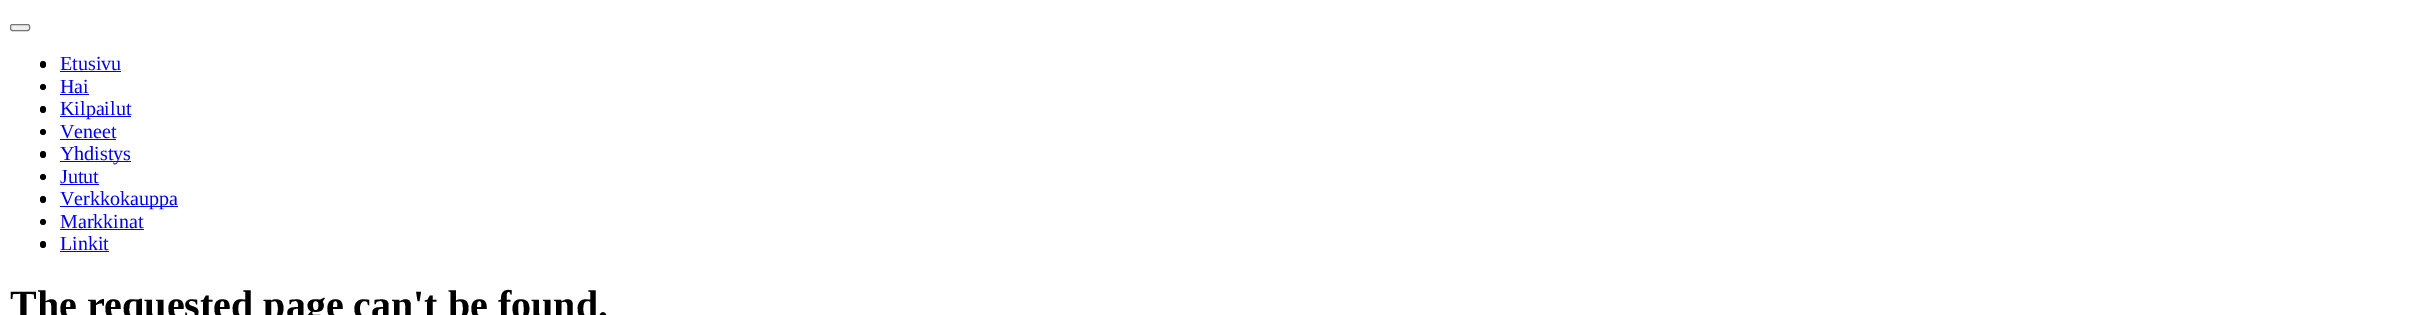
%!PS-Adobe-3.0
%%BoundingBox: 0 0 2409 315
%%LanguageLevel: 3
%%Pages: 1
%%EndComments
%%BeginProlog
/setink { 3 { 255 div 3 1 roll } repeat setrgbcolor } def
/usefont { [ exch dup neg 0 0 3 -1 roll 0 0 ] selectfont } def
/drawtext { setink usefont moveto show } def
/fillbox { setink rectfill } def
/disc { newpath 0 360 arc closepath } def
/rrect { 5 dict begin { /r /h /w /y /x } { exch def } forall
  x r add y moveto x w add y 2 copy h add r arct x w add y h add x 1 index r arct
  x y h add x y r arct x y 2 copy exch w add exch r arct closepath end } def
%%EndProlog
%%BeginSetup
<< /PageSize [2409 315] >> setpagedevice
%%EndSetup
%%Page: 1 1
0 315 translate 1 -1 scale
4 setmiterlimit
0 0 2409 315 255 255 255 fillbox
239 239 239 setink
10.5 24.5 19 6 2 rrect gsave fill grestore
118 118 118 setink
stroke
0 0 0 setink
40 61 6 7 3 rrect fill
(Etusivu) 60 70 /LiberationSerif-Regular 20 0 0 238 drawtext
60 71 61 1 0 0 238 fillbox
0 0 0 setink
43 87 3 disc fill
(Hai) 60 93 /LiberationSerif-Regular 20 0 0 238 drawtext
60 94 29 1 0 0 238 fillbox
0 0 0 setink
40 106 6 7 3 rrect fill
60 116 71 1 0 0 238 fillbox
(Kilpailut) 60 115 /LiberationSerif-Regular 20 0 0 238 drawtext
0 0 0 setink
43 132 3 disc fill
(Veneet) 60 138 /LiberationSerif-Regular 20 0 0 238 drawtext
60 139 56 1 0 0 238 fillbox
0 0 0 setink
40 151 6 7 3 rrect fill
60 161 71 1 0 0 238 fillbox
(Yhdistys) 60 160 /LiberationSerif-Regular 20 0 0 238 drawtext
0 0 0 setink
43 177 3 disc fill
(Jutut) 60 183 /LiberationSerif-Regular 20 0 0 238 drawtext
60 184 39 1 0 0 238 fillbox
0 0 0 setink
40 196 6 7 3 rrect fill
60 206 118 1 0 0 238 fillbox
(Verkkokauppa) 60 205 /LiberationSerif-Regular 20 0 0 238 drawtext
0 0 0 setink
43 222 3 disc fill
(Markkinat) 60 228 /LiberationSerif-Regular 20 0 0 238 drawtext
60 229 84 1 0 0 238 fillbox
0 0 0 setink
40 241 6 7 3 rrect fill
(Linkit) 60 250 /LiberationSerif-Regular 20 0 0 238 drawtext
60 251 49 1 0 0 238 fillbox
(The requested page can't be found.) 10 318 /LiberationSerif-Bold 40 0 0 0 drawtext
showpage
%%EOF
